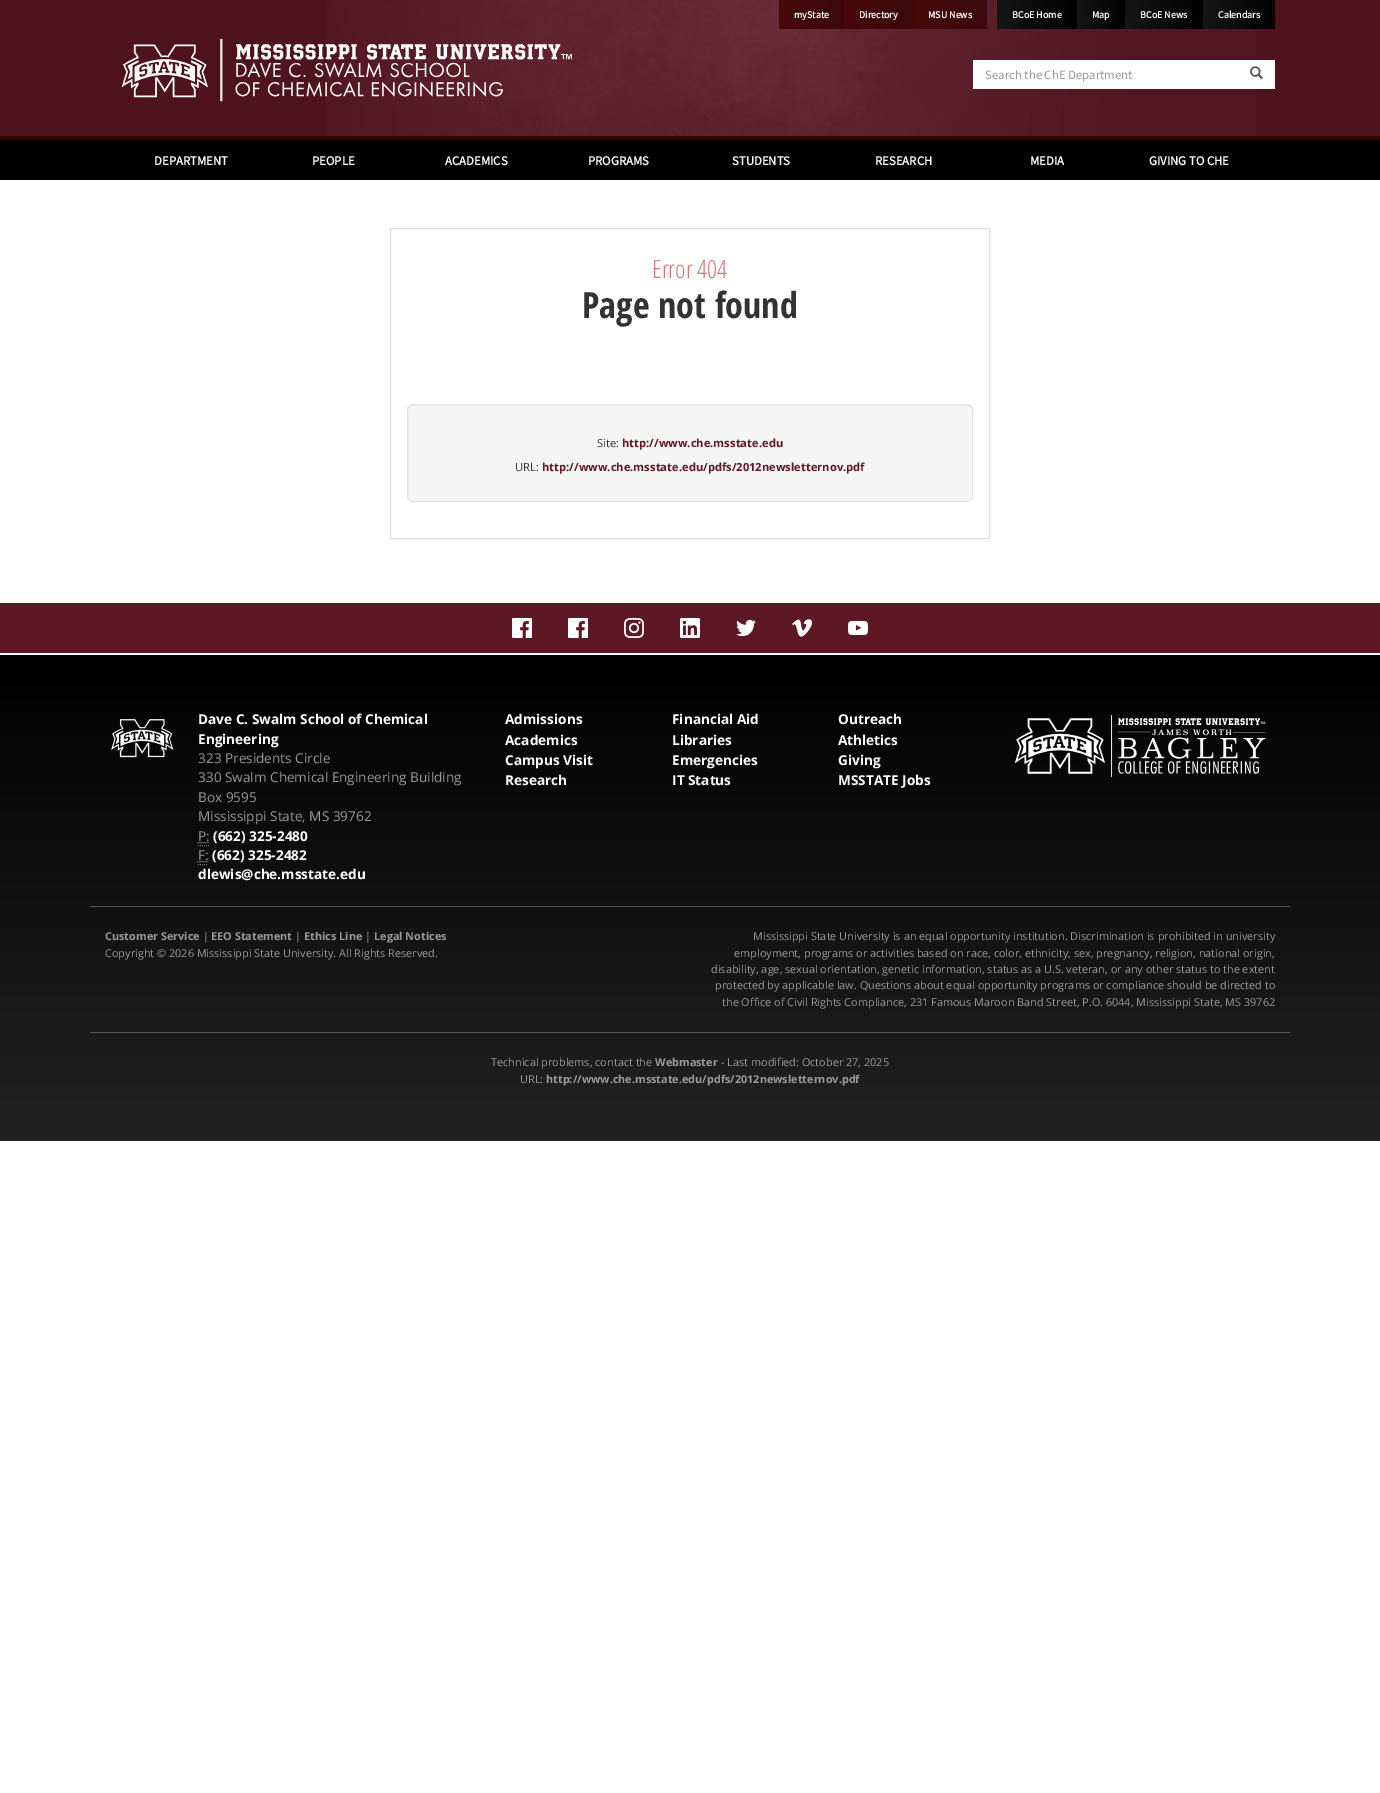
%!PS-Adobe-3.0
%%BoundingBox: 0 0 1380 1793
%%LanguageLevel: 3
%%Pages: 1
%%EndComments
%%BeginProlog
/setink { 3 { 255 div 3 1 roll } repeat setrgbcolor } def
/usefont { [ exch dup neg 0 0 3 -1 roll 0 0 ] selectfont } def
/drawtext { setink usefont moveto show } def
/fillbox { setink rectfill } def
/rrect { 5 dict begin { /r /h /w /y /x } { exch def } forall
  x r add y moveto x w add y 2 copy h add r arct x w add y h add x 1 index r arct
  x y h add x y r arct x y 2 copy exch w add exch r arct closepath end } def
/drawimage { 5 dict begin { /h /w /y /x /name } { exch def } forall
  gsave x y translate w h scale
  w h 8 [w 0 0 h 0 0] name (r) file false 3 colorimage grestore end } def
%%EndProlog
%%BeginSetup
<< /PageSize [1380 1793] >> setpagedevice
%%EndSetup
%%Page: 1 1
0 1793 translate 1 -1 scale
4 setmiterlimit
0 0 1380 1793 255 255 255 fillbox
0 0 1380 136 79 19 31 fillbox
(assets/img1.rgb) 326 0 930 136 drawimage
0 136 1380 4 48 6 7 fillbox
(assets/img2.rgb) 121 39 452 63 drawimage
gsave 779 0 moveto 844 0 lineto 844 29 lineto 779 29 lineto closepath clip newpath
<< /ShadingType 2 /ColorSpace /DeviceRGB /Coords [779 15 844 14] /Extend [true true] /Function << /FunctionType 2 /Domain [0 1] /C0 [0.278 0.031 0.035] /C1 [0.235 0.031 0.035] /N 1 >> >> shfill grestore
(myState) 794 18 /SourceSansPro-Bold 10 255 255 255 drawtext
gsave 844 0 moveto 913 0 lineto 913 29 lineto 844 29 lineto closepath clip newpath
<< /ShadingType 2 /ColorSpace /DeviceRGB /Coords [844 15 913 14] /Extend [true true] /Function << /FunctionType 2 /Domain [0 1] /C0 [0.278 0.031 0.035] /C1 [0.235 0.031 0.035] /N 1 >> >> shfill grestore
(Directory) 859 18 /SourceSansPro-Bold 10 255 255 255 drawtext
gsave 913 0 moveto 987 0 lineto 987 29 lineto 913 29 lineto closepath clip newpath
<< /ShadingType 2 /ColorSpace /DeviceRGB /Coords [913 15 987 14] /Extend [true true] /Function << /FunctionType 2 /Domain [0 1] /C0 [0.278 0.031 0.035] /C1 [0.235 0.031 0.035] /N 1 >> >> shfill grestore
(MSU News) 928 18 /SourceSansPro-Bold 10 255 255 255 drawtext
gsave 997 0 moveto 1077 0 lineto 1077 29 lineto 997 29 lineto closepath clip newpath
<< /ShadingType 2 /ColorSpace /DeviceRGB /Coords [997 15 1077 14] /Extend [true true] /Function << /FunctionType 2 /Domain [0 1] /C0 [0.086 0.086 0.086] /C1 [0 0 0] /N 1 >> >> shfill grestore
(BCoE Home) 1012 18 /SourceSansPro-Bold 10 255 255 255 drawtext
gsave 1077 0 moveto 1125 0 lineto 1125 29 lineto 1077 29 lineto closepath clip newpath
<< /ShadingType 2 /ColorSpace /DeviceRGB /Coords [1077 15 1125 14] /Extend [true true] /Function << /FunctionType 2 /Domain [0 1] /C0 [0.086 0.086 0.086] /C1 [0 0 0] /N 1 >> >> shfill grestore
(Map) 1092 18 /SourceSansPro-Bold 10 255 255 255 drawtext
gsave 1125 0 moveto 1203 0 lineto 1203 29 lineto 1125 29 lineto closepath clip newpath
<< /ShadingType 2 /ColorSpace /DeviceRGB /Coords [1125 15 1203 14] /Extend [true true] /Function << /FunctionType 2 /Domain [0 1] /C0 [0.086 0.086 0.086] /C1 [0 0 0] /N 1 >> >> shfill grestore
(BCoE News) 1140 18 /SourceSansPro-Bold 10 255 255 255 drawtext
gsave 1203 0 moveto 1275 0 lineto 1275 29 lineto 1203 29 lineto closepath clip newpath
<< /ShadingType 2 /ColorSpace /DeviceRGB /Coords [1203 15 1275 14] /Extend [true true] /Function << /FunctionType 2 /Domain [0 1] /C0 [0.086 0.086 0.086] /C1 [0 0 0] /N 1 >> >> shfill grestore
(Calendars) 1218 18 /SourceSansPro-Bold 10 255 255 255 drawtext
973 60 302 29 255 255 255 fillbox
(assets/img3.rgb) 1250 66 13 13 drawimage
(Search the ChE Department) 985 79 /SourceSansPro-Regular 12.75 153 153 153 drawtext
0 140 1380 40 0 0 0 fillbox
(DEPARTMENT) 154 165 /SourceSansPro-Bold 12.75 255 255 255 drawtext
(PEOPLE) 312 165 /SourceSansPro-Bold 12.75 255 255 255 drawtext
(ACADEMICS) 445 165 /SourceSansPro-Bold 12.75 255 255 255 drawtext
(PROGRAMS) 588 165 /SourceSansPro-Bold 12.75 255 255 255 drawtext
(STUDENTS) 732 165 /SourceSansPro-Bold 12.75 255 255 255 drawtext
(RESEARCH) 875 165 /SourceSansPro-Bold 12.75 255 255 255 drawtext
(MEDIA) 1030 165 /SourceSansPro-Bold 12.75 255 255 255 drawtext
(GIVING TO CHE) 1149 165 /SourceSansPro-Bold 12.75 255 255 255 drawtext
221 221 221 setink
390.5 228.5 599 310 rectstroke
(Error 404) 652 278 /OpenSansCondensed-Light 25 207 118 119 drawtext
(Page not found) 582 318 /OpenSansCondensed-Bold 36 51 51 51 drawtext
245 245 245 setink
407 404 566 98 6 rrect fill
233 233 233 setink
413 406 moveto 967 406 lineto 970 406 972 408 972 411 curveto 972 408 970 405 967 405 curveto 413 405 lineto 410 405 408 408 408 411 curveto 408 408 410 406 413 406 curveto closepath fill
227 227 227 setink
407.5 404.5 565 97 5.5 rrect stroke
(Site:) 597 447 /OpenSans-Regular 11.2 51 51 51 drawtext
(http://www.che.msstate.edu) 622 447 /OpenSans-Bold 11.2 93 23 37 drawtext
(URL:) 515 471 /OpenSans-Regular 11.2 51 51 51 drawtext
(http://www.che.msstate.edu/pdfs/2012newsletternov.pdf) 542 471 /OpenSans-Bold 11.2 93 23 37 drawtext
0 603 1380 50 93 23 37 fillbox
(assets/img4.rgb) 512 618 20 20 drawimage
(assets/img4.rgb) 568 618 20 20 drawimage
(assets/img5.rgb) 624 618 20 20 drawimage
(assets/img6.rgb) 680 618 20 20 drawimage
(assets/img7.rgb) 736 619 20 18 drawimage
(assets/img8.rgb) 792 619 20 18 drawimage
(assets/img9.rgb) 848 620 20 15 drawimage
gsave 0 655 moveto 1380 655 lineto 1380 1141 lineto 0 1141 lineto closepath clip newpath
<< /ShadingType 2 /ColorSpace /DeviceRGB /Coords [690 655 690 1141] /Extend [true true] /Function << /FunctionType 2 /Domain [0 1] /C0 [0 0 0] /C1 [0.133 0.133 0.133] /N 1 >> >> shfill grestore
(assets/img10.rgb) 111 719 63 39 drawimage
(Dave C. Swalm School of Chemical) 198 724 /OpenSans-Bold 13.6 255 255 255 drawtext
(Engineering) 198 744 /OpenSans-Bold 13.6 255 255 255 drawtext
(323 Presidents Circle) 198 763 /OpenSans-Regular 13.6 153 153 153 drawtext
(330 Swalm Chemical Engineering Building) 198 782 /OpenSans-Regular 13.6 153 153 153 drawtext
(Box 9595) 198 802 /OpenSans-Regular 13.6 153 153 153 drawtext
(Mississippi State, MS 39762) 198 821 /OpenSans-Regular 13.6 153 153 153 drawtext
(P:) 198 841 /OpenSans-Regular 13.6 153 153 153 drawtext
119 119 119 setink
[1 1] 0 setdash
198 845.5 moveto 209 845.5 lineto stroke
153 153 153 setink
197.5 842.5 moveto 209 842.5 lineto stroke
(\(662\) 325-2480) 213 841 /OpenSans-Bold 13.6 255 255 255 drawtext
(F:) 198 860 /OpenSans-Regular 13.6 153 153 153 drawtext
119 119 119 setink
198 864.5 moveto 208 864.5 lineto stroke
153 153 153 setink
197.5 861.5 moveto 208 861.5 lineto stroke
(\(662\) 325-2482) 212 860 /OpenSans-Bold 13.6 255 255 255 drawtext
(dlewis@che.msstate.edu) 198 879 /OpenSans-Bold 13.6 255 255 255 drawtext
(Admissions) 505 724 /OpenSans-Bold 13.6 255 255 255 drawtext
(Academics) 505 745 /OpenSans-Bold 13.6 255 255 255 drawtext
(Campus Visit) 505 765 /OpenSans-Bold 13.6 255 255 255 drawtext
(Research) 505 785 /OpenSans-Bold 13.6 255 255 255 drawtext
(Financial Aid) 672 724 /OpenSans-Bold 13.6 255 255 255 drawtext
(Libraries) 672 745 /OpenSans-Bold 13.6 255 255 255 drawtext
(Emergencies) 672 765 /OpenSans-Bold 13.6 255 255 255 drawtext
(IT Status) 672 785 /OpenSans-Bold 13.6 255 255 255 drawtext
(Outreach) 838 724 /OpenSans-Bold 13.6 255 255 255 drawtext
(Athletics) 838 745 /OpenSans-Bold 13.6 255 255 255 drawtext
(Giving) 838 765 /OpenSans-Bold 13.6 255 255 255 drawtext
(MSSTATE Jobs) 838 785 /OpenSans-Bold 13.6 255 255 255 drawtext
(assets/img11.rgb) 1014 714 252 64 drawimage
90 906 1200 1 85 85 85 fillbox
90 1032 1200 1 85 85 85 fillbox
(Customer Service) 105 940 /OpenSans-Bold 10.88 153 153 153 drawtext
(|) 203 940 /OpenSans-Regular 10.88 153 153 153 drawtext
(EEO Statement) 211 940 /OpenSans-Bold 10.88 153 153 153 drawtext
(|) 295 940 /OpenSans-Regular 10.88 153 153 153 drawtext
(Ethics Line) 304 940 /OpenSans-Bold 10.88 153 153 153 drawtext
(|) 365 940 /OpenSans-Regular 10.88 153 153 153 drawtext
(Legal Notices) 374 940 /OpenSans-Bold 10.88 153 153 153 drawtext
(Copyright © 2026 Mississippi State University. All Rights Reserved.) 105 957 /OpenSans-Regular 10.88 153 153 153 drawtext
(Mississippi State University is an equal opportunity institution. Discrimination is prohibited in university) 753 940 /OpenSans-Regular 10.88 153 153 153 drawtext
(employment, programs or activities based on race, color, ethnicity, sex, pregnancy, religion, national origin,) 734 957 /OpenSans-Regular 10.88 153 153 153 drawtext
(disability, age, sexual orientation, genetic information, status as a U.S. veteran, or any other status to the extent) 711 973 /OpenSans-Regular 10.88 153 153 153 drawtext
(protected by applicable law. Questions about equal opportunity programs or compliance should be directed to) 715 989 /OpenSans-Regular 10.88 153 153 153 drawtext
(the Office of Civil Rights Compliance, 231 Famous Maroon Band Street, P.O. 6044, Mississippi State, MS 39762) 722 1006 /OpenSans-Regular 10.88 153 153 153 drawtext
(Technical problems, contact the) 491 1066 /OpenSans-Regular 10.88 153 153 153 drawtext
(Webmaster) 655 1066 /OpenSans-Bold 10.88 153 153 153 drawtext
(- Last modified: October 27, 2025) 721 1066 /OpenSans-Regular 10.88 153 153 153 drawtext
(URL:) 520 1083 /OpenSans-Regular 10.88 153 153 153 drawtext
(http://www.che.msstate.edu/pdfs/2012newsletternov.pdf) 546 1083 /OpenSans-Bold 10.88 153 153 153 drawtext
showpage
%%EOF
